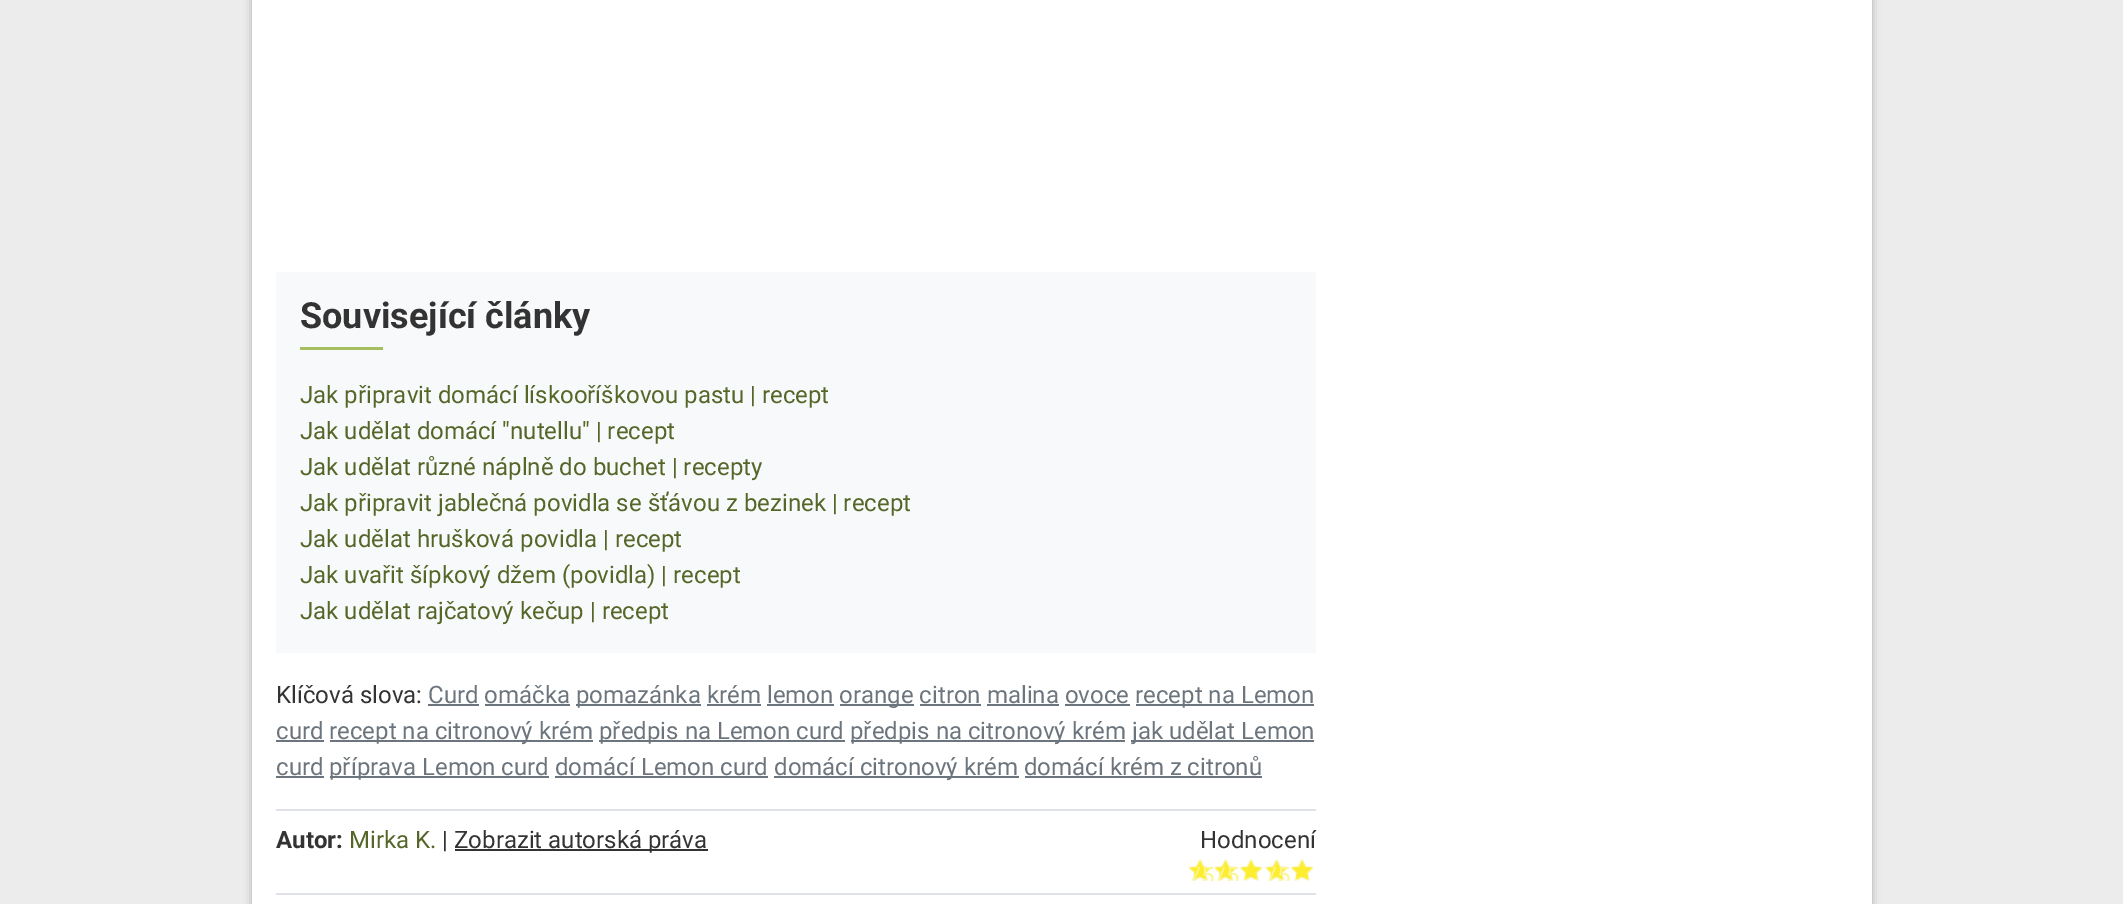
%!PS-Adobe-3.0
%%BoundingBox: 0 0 2123 904
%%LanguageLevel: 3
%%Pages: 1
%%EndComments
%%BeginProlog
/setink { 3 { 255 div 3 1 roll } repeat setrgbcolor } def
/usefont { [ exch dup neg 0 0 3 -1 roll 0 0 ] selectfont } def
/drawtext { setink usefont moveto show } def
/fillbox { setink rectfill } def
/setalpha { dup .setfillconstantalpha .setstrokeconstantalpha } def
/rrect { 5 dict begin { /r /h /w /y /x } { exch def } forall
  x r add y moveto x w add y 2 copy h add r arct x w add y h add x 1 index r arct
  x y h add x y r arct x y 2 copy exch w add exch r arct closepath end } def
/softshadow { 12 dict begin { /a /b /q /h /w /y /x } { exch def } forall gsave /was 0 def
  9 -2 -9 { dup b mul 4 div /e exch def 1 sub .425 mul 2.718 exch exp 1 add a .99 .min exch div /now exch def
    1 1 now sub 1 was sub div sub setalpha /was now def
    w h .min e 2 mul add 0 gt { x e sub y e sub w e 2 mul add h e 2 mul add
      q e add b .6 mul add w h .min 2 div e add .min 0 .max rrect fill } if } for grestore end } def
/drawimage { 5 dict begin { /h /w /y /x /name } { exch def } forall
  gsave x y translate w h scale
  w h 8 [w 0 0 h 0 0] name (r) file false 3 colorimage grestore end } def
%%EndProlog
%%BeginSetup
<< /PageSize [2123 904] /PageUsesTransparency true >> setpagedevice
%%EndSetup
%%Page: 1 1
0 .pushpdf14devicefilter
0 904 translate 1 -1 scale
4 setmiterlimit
0 0 2123 904 236 236 236 fillbox
0 0 0 setink
252 -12 1620 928 0 4 0.25 softshadow
252 0 1620 904 255 255 255 fillbox
276 272 1040 381 248 249 250 fillbox
(Související články) 300 328 /Roboto-Bold 36 51 51 51 drawtext
300 347 83 3 165 191 95 fillbox
(Jak připravit domácí lískooříškovou pastu | recept) 300 403 /Roboto-Regular 24 85 102 40 drawtext
(Jak udělat domácí "nutellu" | recept) 300 439 /Roboto-Regular 24 85 102 40 drawtext
(Jak udělat různé náplně do buchet | recepty) 300 475 /Roboto-Regular 24 85 102 40 drawtext
(Jak připravit jablečná povidla se šťávou z bezinek | recept) 300 511 /Roboto-Regular 24 85 102 40 drawtext
(Jak udělat hrušková povidla | recept) 300 547 /Roboto-Regular 24 85 102 40 drawtext
(Jak uvařit šípkový džem \(povidla\) | recept) 300 583 /Roboto-Regular 24 85 102 40 drawtext
(Jak udělat rajčatový kečup | recept) 300 619 /Roboto-Regular 24 85 102 40 drawtext
(Klíčová slova:) 276 703 /Roboto-Regular 24 51 51 51 drawtext
(Curd omáčka) 428 703 /Roboto-Regular 24 108 117 125 drawtext
428 704 51 2 108 117 125 fillbox
576 704 125 2 108 117 125 fillbox
(pomazánka krém lemon) 576 703 /Roboto-Regular 24 108 117 125 drawtext
840 704 74 2 108 117 125 fillbox
(orange citron malina ovoce) 839 703 /Roboto-Regular 24 108 117 125 drawtext
1136 704 178 2 108 117 125 fillbox
(recept na Lemon) 1135 703 /Roboto-Regular 24 108 117 125 drawtext
485 704 85 2 108 117 125 fillbox
707 704 54 2 108 117 125 fillbox
767 704 67 2 108 117 125 fillbox
920 704 61 2 108 117 125 fillbox
987 704 72 2 108 117 125 fillbox
1065 704 65 2 108 117 125 fillbox
(curd) 276 739 /Roboto-Regular 24 108 117 125 drawtext
276 740 48 2 108 117 125 fillbox
330 740 263 2 108 117 125 fillbox
(recept na citronový krém) 329 739 /Roboto-Regular 24 108 117 125 drawtext
599 740 246 2 108 117 125 fillbox
(předpis na Lemon curd) 599 739 /Roboto-Regular 24 108 117 125 drawtext
851 740 274 2 108 117 125 fillbox
(předpis na citronový krém) 850 739 /Roboto-Regular 24 108 117 125 drawtext
1131 740 183 2 108 117 125 fillbox
(jak udělat Lemon) 1132 739 /Roboto-Regular 24 108 117 125 drawtext
(curd) 276 775 /Roboto-Regular 24 108 117 125 drawtext
276 776 48 2 108 117 125 fillbox
330 776 219 2 108 117 125 fillbox
(příprava Lemon curd domácí Lemon curd) 329 775 /Roboto-Regular 24 108 117 125 drawtext
774 776 245 2 108 117 125 fillbox
(domácí citronový krém domácí krém z citronů) 774 775 /Roboto-Regular 24 108 117 125 drawtext
555 776 213 2 108 117 125 fillbox
1025 776 237 2 108 117 125 fillbox
276 809 1040 2 222 226 230 fillbox
276 893 1040 2 222 226 230 fillbox
(Autor:) 276 848 /Roboto-Bold 24 51 51 51 drawtext
(Mirka K.) 349 848 /Roboto-Regular 24 85 102 40 drawtext
(|) 442 848 /Roboto-Regular 24 51 51 51 drawtext
455 849 253 2 51 51 51 fillbox
(Zobrazit autorská práva) 454 848 /Roboto-Regular 24 51 51 51 drawtext
(Hodnocení) 1200 848 /Roboto-Regular 24 51 51 51 drawtext
(assets/img1.rgb) 1189 859 23 22 drawimage
(assets/img2.rgb) 1188 859 24 22 drawimage
gsave
1188 858 26 23 rectclip
(/5) 1191 884 /Roboto-Regular 24 252 245 141 drawtext
grestore
(assets/img3.rgb) 1214 859 23 22 drawimage
(assets/img4.rgb) 1214 859 24 22 drawimage
gsave
1214 858 25 23 rectclip
(/5) 1216 884 /Roboto-Regular 24 253 245 147 drawtext
grestore
(assets/img1.rgb) 1240 859 23 22 drawimage
(assets/img2.rgb) 1239 859 24 22 drawimage
(assets/img3.rgb) 1265 859 23 22 drawimage
(assets/img4.rgb) 1265 859 24 22 drawimage
gsave
1265 858 25 23 rectclip
(/5) 1267 884 /Roboto-Regular 24 253 245 147 drawtext
grestore
(assets/img5.rgb) 1291 859 23 22 drawimage
(assets/img6.rgb) 1290 859 24 22 drawimage
.poppdf14devicefilter showpage
%%EOF
